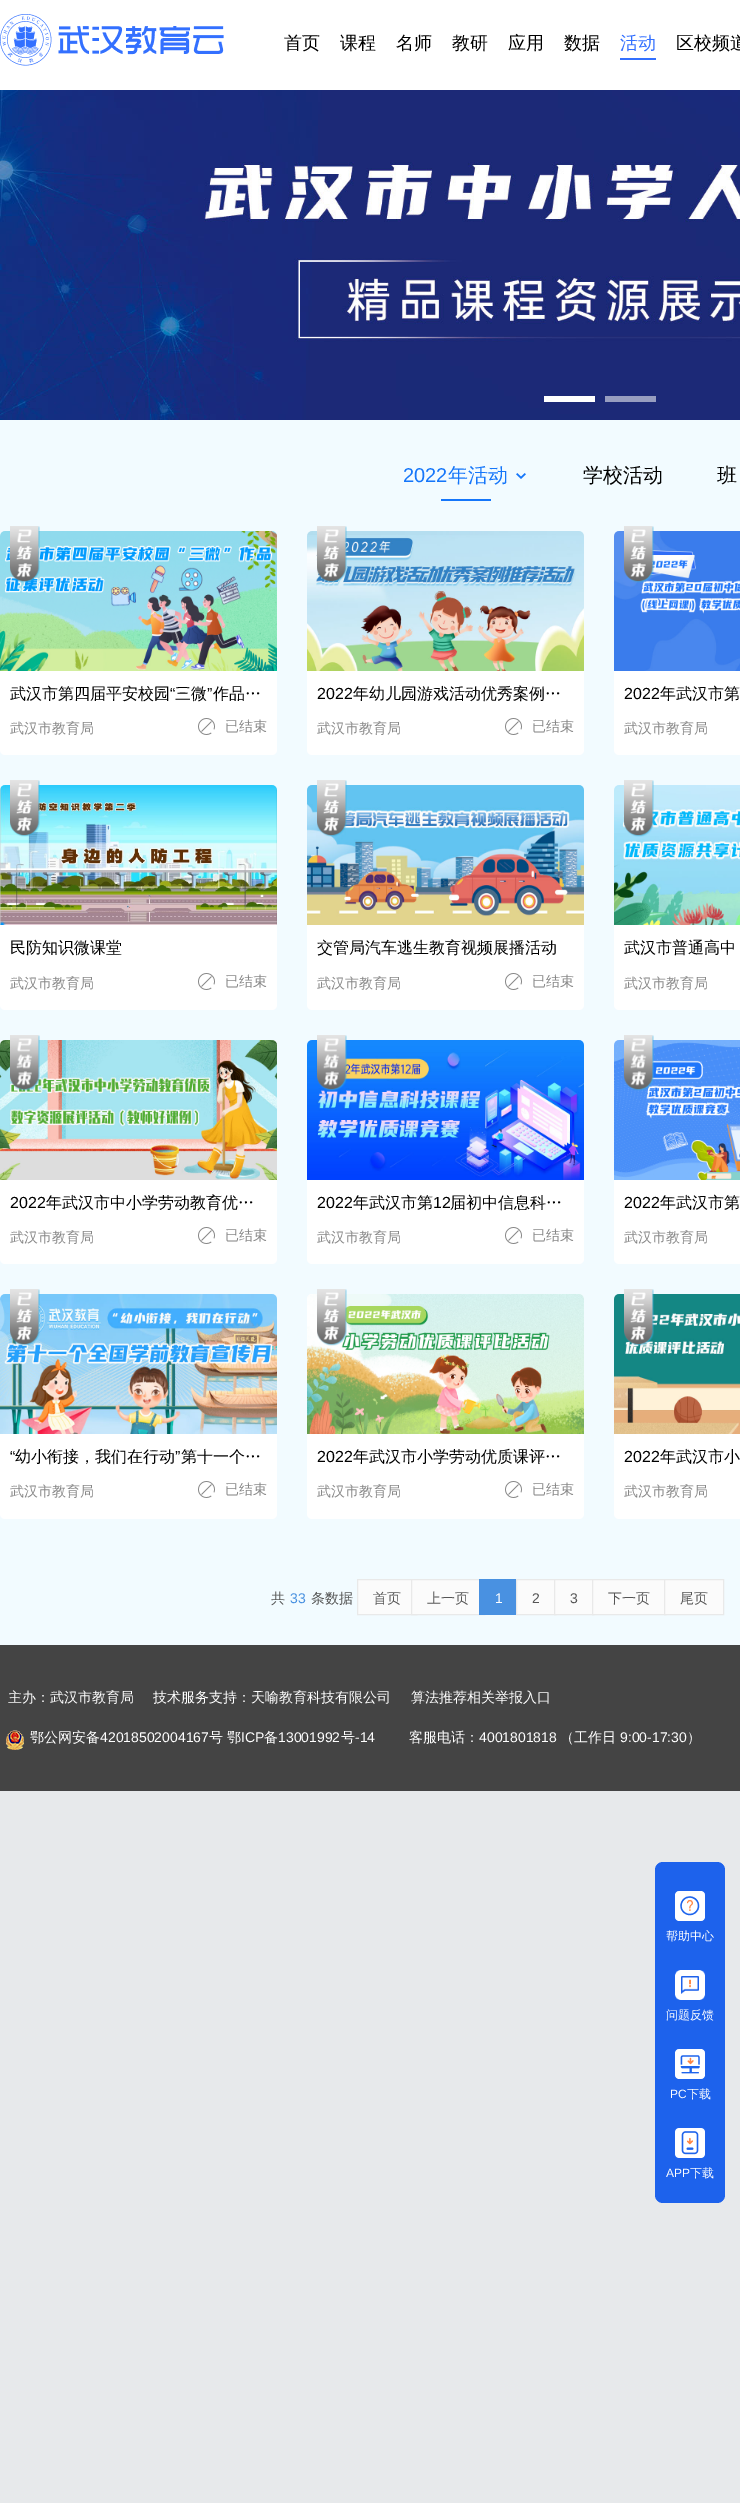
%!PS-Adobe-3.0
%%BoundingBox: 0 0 740 2503
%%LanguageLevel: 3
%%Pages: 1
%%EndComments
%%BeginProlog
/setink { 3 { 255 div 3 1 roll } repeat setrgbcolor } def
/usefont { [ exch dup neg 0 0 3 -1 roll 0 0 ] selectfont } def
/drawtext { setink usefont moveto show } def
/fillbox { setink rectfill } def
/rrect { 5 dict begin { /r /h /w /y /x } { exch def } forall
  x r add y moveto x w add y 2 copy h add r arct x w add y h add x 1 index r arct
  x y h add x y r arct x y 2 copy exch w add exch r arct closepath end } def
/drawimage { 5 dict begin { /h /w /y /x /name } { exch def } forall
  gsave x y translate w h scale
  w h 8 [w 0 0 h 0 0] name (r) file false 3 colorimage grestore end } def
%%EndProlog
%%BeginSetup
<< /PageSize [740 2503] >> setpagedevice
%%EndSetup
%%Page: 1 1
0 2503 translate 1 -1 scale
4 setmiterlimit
0 0 740 2503 231 233 235 fillbox
0 0 740 90 255 255 255 fillbox
(assets/img1.rgb) 0 14 224 52 drawimage
(首页) 284 49 /WenQuanYiZenHei-Medium 18 0 0 0 drawtext
(课程) 340 49 /WenQuanYiZenHei-Medium 18 0 0 0 drawtext
(名师) 396 49 /WenQuanYiZenHei-Medium 18 0 0 0 drawtext
(教研) 452 49 /WenQuanYiZenHei-Medium 18 0 0 0 drawtext
(应用) 508 49 /WenQuanYiZenHei-Medium 18 0 0 0 drawtext
(数据) 564 49 /WenQuanYiZenHei-Medium 18 0 0 0 drawtext
(活动) 620 49 /WenQuanYiZenHei-Medium 18 51 112 255 drawtext
620 58 36 2 51 112 255 fillbox
(区校频道) 676 49 /WenQuanYiZenHei-Medium 18 0 0 0 drawtext
(assets/img2.rgb) 0 90 740 330 drawimage
544 396 51 6 255 255 255 fillbox
605 396 51 6 151 157 192 fillbox
0 420 740 1225 242 251 255 fillbox
(2022) 403 482 /LiberationSans-Regular 20 21 118 250 drawtext
(年活动) 448 482 /WenQuanYiZenHei-Medium 20 21 118 250 drawtext
(assets/img3.rgb) 516 473 10 6 drawimage
441 499 50 2 21 118 250 fillbox
(学校活动) 583 482 /WenQuanYiZenHei-Medium 20 0 0 0 drawtext
(班) 717 482 /WenQuanYiZenHei-Medium 20 0 0 0 drawtext
255 255 255 setink
0 531 277 224 5 rrect fill
(assets/img5.rgb) 0 531 277 140 drawimage
(assets/img4.rgb) 10 526 30 57 drawimage
(武汉市第四届平安校园) 10 699 /WenQuanYiZenHei-Medium 16 0 0 0 drawtext
(“) 170 699 /LiberationSans-Regular 16 0 0 0 drawtext
(三微) 175 699 /WenQuanYiZenHei-Medium 16 0 0 0 drawtext
(”) 207 699 /LiberationSans-Regular 16 0 0 0 drawtext
(作品…) 213 699 /WenQuanYiZenHei-Medium 16 0 0 0 drawtext
(武汉市教育局) 10 733 /WenQuanYiZenHei-Medium 14 136 136 136 drawtext
(assets/img6.rgb) 198 718 17 17 drawimage
(已结束) 225 731 /WenQuanYiZenHei-Medium 14 136 136 136 drawtext
255 255 255 setink
307 531 277 224 5 rrect fill
(assets/img8.rgb) 307 531 277 140 drawimage
(assets/img7.rgb) 317 526 30 57 drawimage
(2022) 317 699 /LiberationSans-Regular 16 0 0 0 drawtext
(年幼儿园游戏活动优秀案例…) 353 699 /WenQuanYiZenHei-Medium 16 0 0 0 drawtext
(武汉市教育局) 317 733 /WenQuanYiZenHei-Medium 14 136 136 136 drawtext
(assets/img6.rgb) 505 718 17 17 drawimage
(已结束) 532 731 /WenQuanYiZenHei-Medium 14 136 136 136 drawtext
255 255 255 setink
614 531 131 224 5 rrect fill
(assets/img10.rgb) 614 531 126 140 drawimage
(assets/img9.rgb) 624 526 30 57 drawimage
(2022) 624 699 /LiberationSans-Regular 16 0 0 0 drawtext
(年武汉市第) 660 699 /WenQuanYiZenHei-Medium 16 0 0 0 drawtext
(武汉市教育局) 624 733 /WenQuanYiZenHei-Medium 14 136 136 136 drawtext
255 255 255 setink
0 785 277 225 5 rrect fill
(assets/img12.rgb) 0 785 277 140 drawimage
(assets/img11.rgb) 10 780 30 57 drawimage
(民防知识微课堂) 10 953 /WenQuanYiZenHei-Medium 16 0 0 0 drawtext
(武汉市教育局) 10 988 /WenQuanYiZenHei-Medium 14 136 136 136 drawtext
(assets/img6.rgb) 198 973 17 17 drawimage
(已结束) 225 986 /WenQuanYiZenHei-Medium 14 136 136 136 drawtext
255 255 255 setink
307 785 277 225 5 rrect fill
(assets/img14.rgb) 307 785 277 140 drawimage
(assets/img13.rgb) 317 780 30 57 drawimage
(交管局汽车逃生教育视频展播活动) 317 953 /WenQuanYiZenHei-Medium 16 0 0 0 drawtext
(武汉市教育局) 317 988 /WenQuanYiZenHei-Medium 14 136 136 136 drawtext
(assets/img6.rgb) 505 973 17 17 drawimage
(已结束) 532 986 /WenQuanYiZenHei-Medium 14 136 136 136 drawtext
255 255 255 setink
614 785 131 225 5 rrect fill
(assets/img16.rgb) 614 785 126 140 drawimage
(assets/img15.rgb) 624 780 30 57 drawimage
(武汉市普通高中) 624 953 /WenQuanYiZenHei-Medium 16 0 0 0 drawtext
(武汉市教育局) 624 988 /WenQuanYiZenHei-Medium 14 136 136 136 drawtext
255 255 255 setink
0 1040 277 224 5 rrect fill
(assets/img18.rgb) 0 1040 277 140 drawimage
(assets/img17.rgb) 10 1035 30 56 drawimage
(2022) 10 1208 /LiberationSans-Regular 16 0 0 0 drawtext
(年武汉市中小学劳动教育优…) 46 1208 /WenQuanYiZenHei-Medium 16 0 0 0 drawtext
(武汉市教育局) 10 1242 /WenQuanYiZenHei-Medium 14 136 136 136 drawtext
(assets/img6.rgb) 198 1227 17 17 drawimage
(已结束) 225 1240 /WenQuanYiZenHei-Medium 14 136 136 136 drawtext
255 255 255 setink
307 1040 277 224 5 rrect fill
(assets/img20.rgb) 307 1040 277 140 drawimage
(assets/img19.rgb) 317 1035 30 56 drawimage
(2022) 317 1208 /LiberationSans-Regular 16 0 0 0 drawtext
(年武汉市第) 353 1208 /WenQuanYiZenHei-Medium 16 0 0 0 drawtext
(12) 433 1208 /LiberationSans-Regular 16 0 0 0 drawtext
(届初中信息科…) 450 1208 /WenQuanYiZenHei-Medium 16 0 0 0 drawtext
(武汉市教育局) 317 1242 /WenQuanYiZenHei-Medium 14 136 136 136 drawtext
(assets/img6.rgb) 505 1227 17 17 drawimage
(已结束) 532 1240 /WenQuanYiZenHei-Medium 14 136 136 136 drawtext
255 255 255 setink
614 1040 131 224 5 rrect fill
(assets/img22.rgb) 614 1040 126 140 drawimage
(assets/img21.rgb) 624 1035 30 56 drawimage
(2022) 624 1208 /LiberationSans-Regular 16 0 0 0 drawtext
(年武汉市第) 660 1208 /WenQuanYiZenHei-Medium 16 0 0 0 drawtext
(武汉市教育局) 624 1242 /WenQuanYiZenHei-Medium 14 136 136 136 drawtext
255 255 255 setink
0 1294 277 225 5 rrect fill
(assets/img24.rgb) 0 1294 277 140 drawimage
(assets/img23.rgb) 10 1289 30 57 drawimage
(“) 10 1462 /LiberationSans-Regular 16 0 0 0 drawtext
(幼小衔接，我们在行动) 15 1462 /WenQuanYiZenHei-Medium 16 0 0 0 drawtext
(”) 175 1462 /LiberationSans-Regular 16 0 0 0 drawtext
(第十一个…) 181 1462 /WenQuanYiZenHei-Medium 16 0 0 0 drawtext
(武汉市教育局) 10 1496 /WenQuanYiZenHei-Medium 14 136 136 136 drawtext
(assets/img6.rgb) 198 1481 17 17 drawimage
(已结束) 225 1494 /WenQuanYiZenHei-Medium 14 136 136 136 drawtext
255 255 255 setink
307 1294 277 225 5 rrect fill
(assets/img26.rgb) 307 1294 277 140 drawimage
(assets/img25.rgb) 317 1289 30 57 drawimage
(2022) 317 1462 /LiberationSans-Regular 16 0 0 0 drawtext
(年武汉市小学劳动优质课评…) 353 1462 /WenQuanYiZenHei-Medium 16 0 0 0 drawtext
(武汉市教育局) 317 1496 /WenQuanYiZenHei-Medium 14 136 136 136 drawtext
(assets/img6.rgb) 505 1481 17 17 drawimage
(已结束) 532 1494 /WenQuanYiZenHei-Medium 14 136 136 136 drawtext
255 255 255 setink
614 1294 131 225 5 rrect fill
(assets/img28.rgb) 614 1294 126 140 drawimage
(assets/img27.rgb) 624 1289 30 57 drawimage
(2022) 624 1462 /LiberationSans-Regular 16 0 0 0 drawtext
(年武汉市小) 660 1462 /WenQuanYiZenHei-Medium 16 0 0 0 drawtext
(武汉市教育局) 624 1496 /WenQuanYiZenHei-Medium 14 136 136 136 drawtext
(共) 271 1603 /WenQuanYiZenHei-Medium 14 85 85 85 drawtext
(33) 290 1603 /LiberationSans-Regular 14 73 145 225 drawtext
(条数据) 311 1603 /WenQuanYiZenHei-Medium 14 85 85 85 drawtext
358 1580 53 34 251 251 251 fillbox
233 233 233 setink
357.5 1579.5 59 35 rectstroke
(首页) 373 1603 /WenQuanYiZenHei-Medium 14 85 85 85 drawtext
412 1580 67 34 251 251 251 fillbox
233 233 233 setink
411.5 1579.5 73 35 rectstroke
(上一页) 427 1603 /WenQuanYiZenHei-Medium 14 85 85 85 drawtext
479 1579 37 36 73 145 225 fillbox
(1) 495 1603 /LiberationSans-Regular 14 255 255 255 drawtext
517 1580 37 34 251 251 251 fillbox
233 233 233 setink
516.5 1579.5 39 35 rectstroke
(2) 532 1603 /LiberationSans-Regular 14 85 85 85 drawtext
555 1580 37 34 251 251 251 fillbox
233 233 233 setink
554.5 1579.5 39 35 rectstroke
(3) 570 1603 /LiberationSans-Regular 14 85 85 85 drawtext
593 1580 71 34 251 251 251 fillbox
233 233 233 setink
592.5 1579.5 73 35 rectstroke
(下一页) 608 1603 /WenQuanYiZenHei-Medium 14 85 85 85 drawtext
251 251 251 setink
664.5 1579.5 moveto 723.5 1579.5 lineto 723.5 1614.5 lineto 664.5 1614.5 lineto closepath gsave fill grestore
233 233 233 setink
stroke
(尾页) 680 1603 /WenQuanYiZenHei-Medium 14 85 85 85 drawtext
0 1645 740 146 68 68 68 fillbox
(主办：武汉市教育局) 8 1702 /WenQuanYiZenHei-Medium 14 255 255 255 drawtext
(技术服务支持：天喻教育科技有限公司) 153 1702 /WenQuanYiZenHei-Medium 14 255 255 255 drawtext
(算法推荐相关举报入口) 411 1702 /WenQuanYiZenHei-Medium 14 255 255 255 drawtext
(assets/img29.rgb) 6 1730 18 20 drawimage
(鄂公网安备) 30 1742 /WenQuanYiZenHei-Medium 14 255 255 255 drawtext
(42018502004167) 100 1742 /LiberationSans-Regular 14 255 255 255 drawtext
(号 鄂) 209 1742 /WenQuanYiZenHei-Medium 14 255 255 255 drawtext
(ICP) 241 1742 /LiberationSans-Regular 14 255 255 255 drawtext
(备) 264 1742 /WenQuanYiZenHei-Medium 14 255 255 255 drawtext
(13001992) 278 1742 /LiberationSans-Regular 14 255 255 255 drawtext
(号) 341 1742 /WenQuanYiZenHei-Medium 14 255 255 255 drawtext
(-14) 355 1742 /LiberationSans-Regular 14 255 255 255 drawtext
(客服电话：) 409 1742 /WenQuanYiZenHei-Medium 14 255 255 255 drawtext
(4001801818) 479 1742 /LiberationSans-Regular 14 255 255 255 drawtext
(（工作日) 560 1742 /WenQuanYiZenHei-Medium 14 255 255 255 drawtext
(9:00-17:30) 620 1742 /LiberationSans-Regular 14 255 255 255 drawtext
(）) 687 1742 /WenQuanYiZenHei-Medium 14 255 255 255 drawtext
29 98 236 setink
655 1862 70 341 8 rrect fill
(assets/img30.rgb) 675 1891 30 30 drawimage
(帮助中心) 666 1940 /WenQuanYiZenHei-Medium 12 255 255 255 drawtext
(assets/img31.rgb) 675 1970 30 30 drawimage
(问题反馈) 666 2019 /WenQuanYiZenHei-Medium 12 255 255 255 drawtext
(assets/img32.rgb) 675 2049 30 30 drawimage
(PC) 670 2098 /LiberationSans-Regular 12 255 255 255 drawtext
(下载) 687 2098 /WenQuanYiZenHei-Medium 12 255 255 255 drawtext
(assets/img33.rgb) 675 2128 30 30 drawimage
(APP) 666 2177 /LiberationSans-Regular 12 255 255 255 drawtext
(下载) 690 2177 /WenQuanYiZenHei-Medium 12 255 255 255 drawtext
showpage
%%EOF
